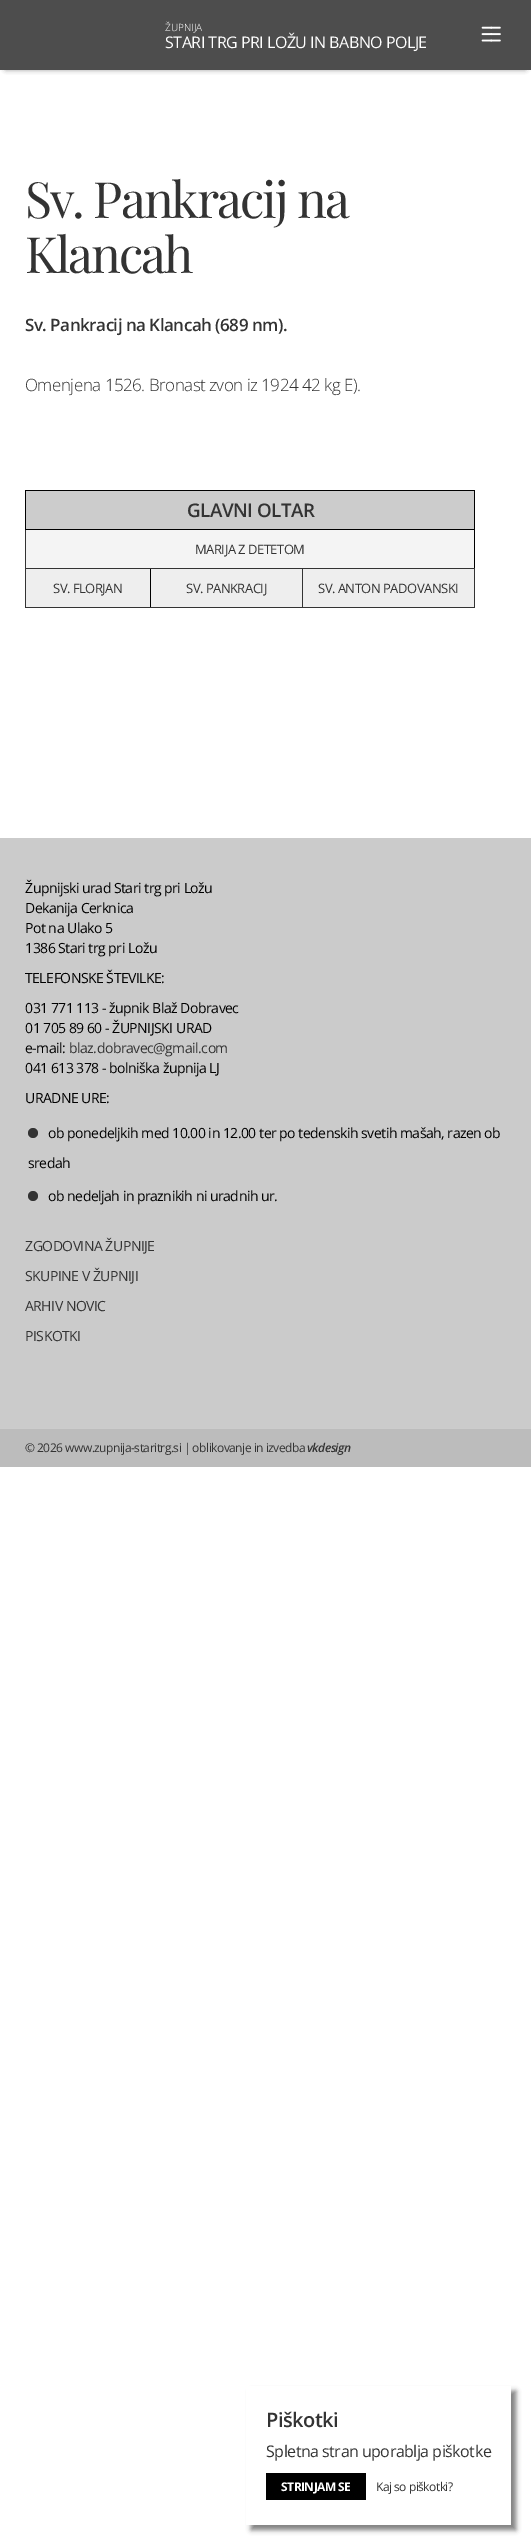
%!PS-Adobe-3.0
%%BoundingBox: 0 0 531 2545
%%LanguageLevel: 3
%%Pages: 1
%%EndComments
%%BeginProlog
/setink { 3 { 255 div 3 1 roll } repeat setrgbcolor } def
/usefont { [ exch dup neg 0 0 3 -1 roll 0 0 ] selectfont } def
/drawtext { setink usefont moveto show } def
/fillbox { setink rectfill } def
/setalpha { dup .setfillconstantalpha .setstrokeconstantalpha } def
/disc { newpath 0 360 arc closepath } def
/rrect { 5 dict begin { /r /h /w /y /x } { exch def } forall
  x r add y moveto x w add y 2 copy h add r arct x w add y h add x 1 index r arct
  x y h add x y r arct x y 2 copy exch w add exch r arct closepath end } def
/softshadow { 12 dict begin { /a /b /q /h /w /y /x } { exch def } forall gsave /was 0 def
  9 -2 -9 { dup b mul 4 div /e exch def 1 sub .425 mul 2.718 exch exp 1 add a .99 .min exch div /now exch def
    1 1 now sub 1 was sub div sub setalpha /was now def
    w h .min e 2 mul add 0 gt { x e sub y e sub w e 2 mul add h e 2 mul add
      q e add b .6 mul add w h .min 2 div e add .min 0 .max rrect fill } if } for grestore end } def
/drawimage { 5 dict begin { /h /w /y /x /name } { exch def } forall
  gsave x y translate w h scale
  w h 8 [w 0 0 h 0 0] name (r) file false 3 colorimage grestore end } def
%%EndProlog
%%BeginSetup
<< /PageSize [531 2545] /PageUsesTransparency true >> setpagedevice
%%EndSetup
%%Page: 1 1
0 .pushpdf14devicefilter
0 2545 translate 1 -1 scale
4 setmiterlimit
0 0 531 2545 255 255 255 fillbox
34 34 34 setink
6 10 519 58 0 3 1 softshadow
0 0 531 70 77 77 77 fillbox
(ŽUPNIJA) 165 31 /OpenSans-Light 10 255 255 255 drawtext
/OpenSans-Regular 16 usefont
165 48 moveto -0.5 0 (STARI TRG PRI LOŽU IN BABNO POLJE) ashow
(assets/img1.rgb) 481 26 20 16 drawimage
/PlayfairDisplay-Regular 50 usefont
51 51 51 setink
25 218 moveto -2 0 (Sv. Pankracij na) ashow
25 273 moveto -2 0 (Klancah) ashow
/OpenSans-SemiBold 17 usefont
25 331 moveto -0.5 0 (Sv. Pankracij na Klancah \(689 nm\).) ashow
/OpenSans-Light 17 usefont
25 391 moveto -0.5 0 (Omenjena 1526. Bronast zvon iz 1924 42 kg E\).) ashow
26 530 448 38 244 244 244 fillbox
26 491 448 38 204 204 204 fillbox
25 490 450 1 0 0 0 fillbox
474 568 1 40 51 51 51 fillbox
474 529 1 40 0 0 0 fillbox
474 490 1 40 0 0 0 fillbox
26 569 448 38 238 238 238 fillbox
302 607 173 1 51 51 51 fillbox
302 568 1 40 51 51 51 fillbox
150 607 153 1 51 51 51 fillbox
150 568 1 40 0 0 0 fillbox
25 607 126 1 51 51 51 fillbox
25 568 1 40 51 51 51 fillbox
25 568 450 1 51 51 51 fillbox
25 529 1 40 51 51 51 fillbox
25 529 450 1 0 0 0 fillbox
25 490 1 40 0 0 0 fillbox
/OpenSans-SemiBold 18.75 usefont
51 51 51 setink
187 517 moveto -0.5 0 (GLAVNI OLTAR) ashow
/OpenSans-Regular 13 usefont
195 554 moveto -0.5 0 (MARIJA Z DETETOM) ashow
53 593 moveto -0.5 0 (SV. FLORJAN) ashow
186 593 moveto -0.5 0 (SV. PANKRACIJ) ashow
318 593 moveto -0.5 0 (SV. ANTON PADOVANSKI) ashow
0 838 531 590 203 203 203 fillbox
/OpenSans-Regular 14 usefont
0 0 0 setink
25 893 moveto -0.5 0 (Župnijski urad Stari trg pri Ložu) ashow
25 913 moveto -0.5 0 (Dekanija Cerknica) ashow
25 933 moveto -0.5 0 (Pot na Ulako 5) ashow
25 953 moveto -0.5 0 (1386 Stari trg pri Ložu) ashow
25 983 moveto -0.5 0 (TELEFONSKE ŠTEVILKE:) ashow
25 1013 moveto -0.5 0 (031 771 113 - župnik Blaž Dobravec) ashow
25 1033 moveto -0.5 0 (01 705 89 60 - ŽUPNIJSKI URAD) ashow
25 1053 moveto -0.5 0 (e-mail:) ashow
51 51 51 setink
69 1053 moveto -0.5 0 (blaz.dobravec@gmail.com) ashow
0 0 0 setink
25 1073 moveto -0.5 0 (041 613 378 - bolniška župnija LJ) ashow
25 1103 moveto -0.5 0 (URADNE URE:) ashow
51 51 51 setink
33 1133 5 disc fill
0 0 0 setink
48 1138 moveto -0.5 0 (ob ponedeljkih med 10.00 in 12.00 ter po tedenskih svetih mašah, razen ob) ashow
28 1168 moveto -0.5 0 (sredah) ashow
51 51 51 setink
33 1196 5 disc fill
0 0 0 setink
48 1201 moveto -0.5 0 (ob nedeljah in praznikih ni uradnih ur.) ashow
51 51 51 setink
25 1251 moveto -0.5 0 (ZGODOVINA ŽUPNIJE) ashow
25 1281 moveto -0.5 0 (SKUPINE V ŽUPNIJI) ashow
25 1311 moveto -0.5 0 (ARHIV NOVIC) ashow
25 1341 moveto -0.5 0 (PISKOTKI) ashow
0 1429 531 38 188 188 188 fillbox
0 1428 531 1 204 204 204 fillbox
/OpenSans-Regular 12 usefont
51 51 51 setink
25 1452 moveto -0.5 0 (© 2026 www.zupnija-staritrg.si | oblikovanje in izvedba) ashow
/OpenSans-SemiBoldItalic 12 usefont
307 1452 moveto -0.5 0 (vkdesign) ashow
gsave
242 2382 moveto 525 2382 lineto 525 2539 lineto 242 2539 lineto closepath 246 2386 moveto 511 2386 lineto 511 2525 lineto 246 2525 lineto closepath eoclip newpath
0 0 0 setink
251 2391 265 139 0 2.5 0.5 softshadow
grestore
/OpenSans-SemiBold 20 usefont
266 2427 moveto -0.5 0 (Piškotki) ashow
/OpenSans-Regular 16 usefont
266 2457 moveto -0.5 0 (Spletna stran uporablja piškotke) ashow
266 2473 100 27 0 0 0 fillbox
/OpenSans-Bold 12 usefont
255 255 255 setink
281 2491 moveto -0.5 0 (STRINJAM SE) ashow
/OpenSans-Regular 12 usefont
51 51 51 setink
376 2491 moveto -0.5 0 (Kaj so piškotki?) ashow
.poppdf14devicefilter showpage
%%EOF
